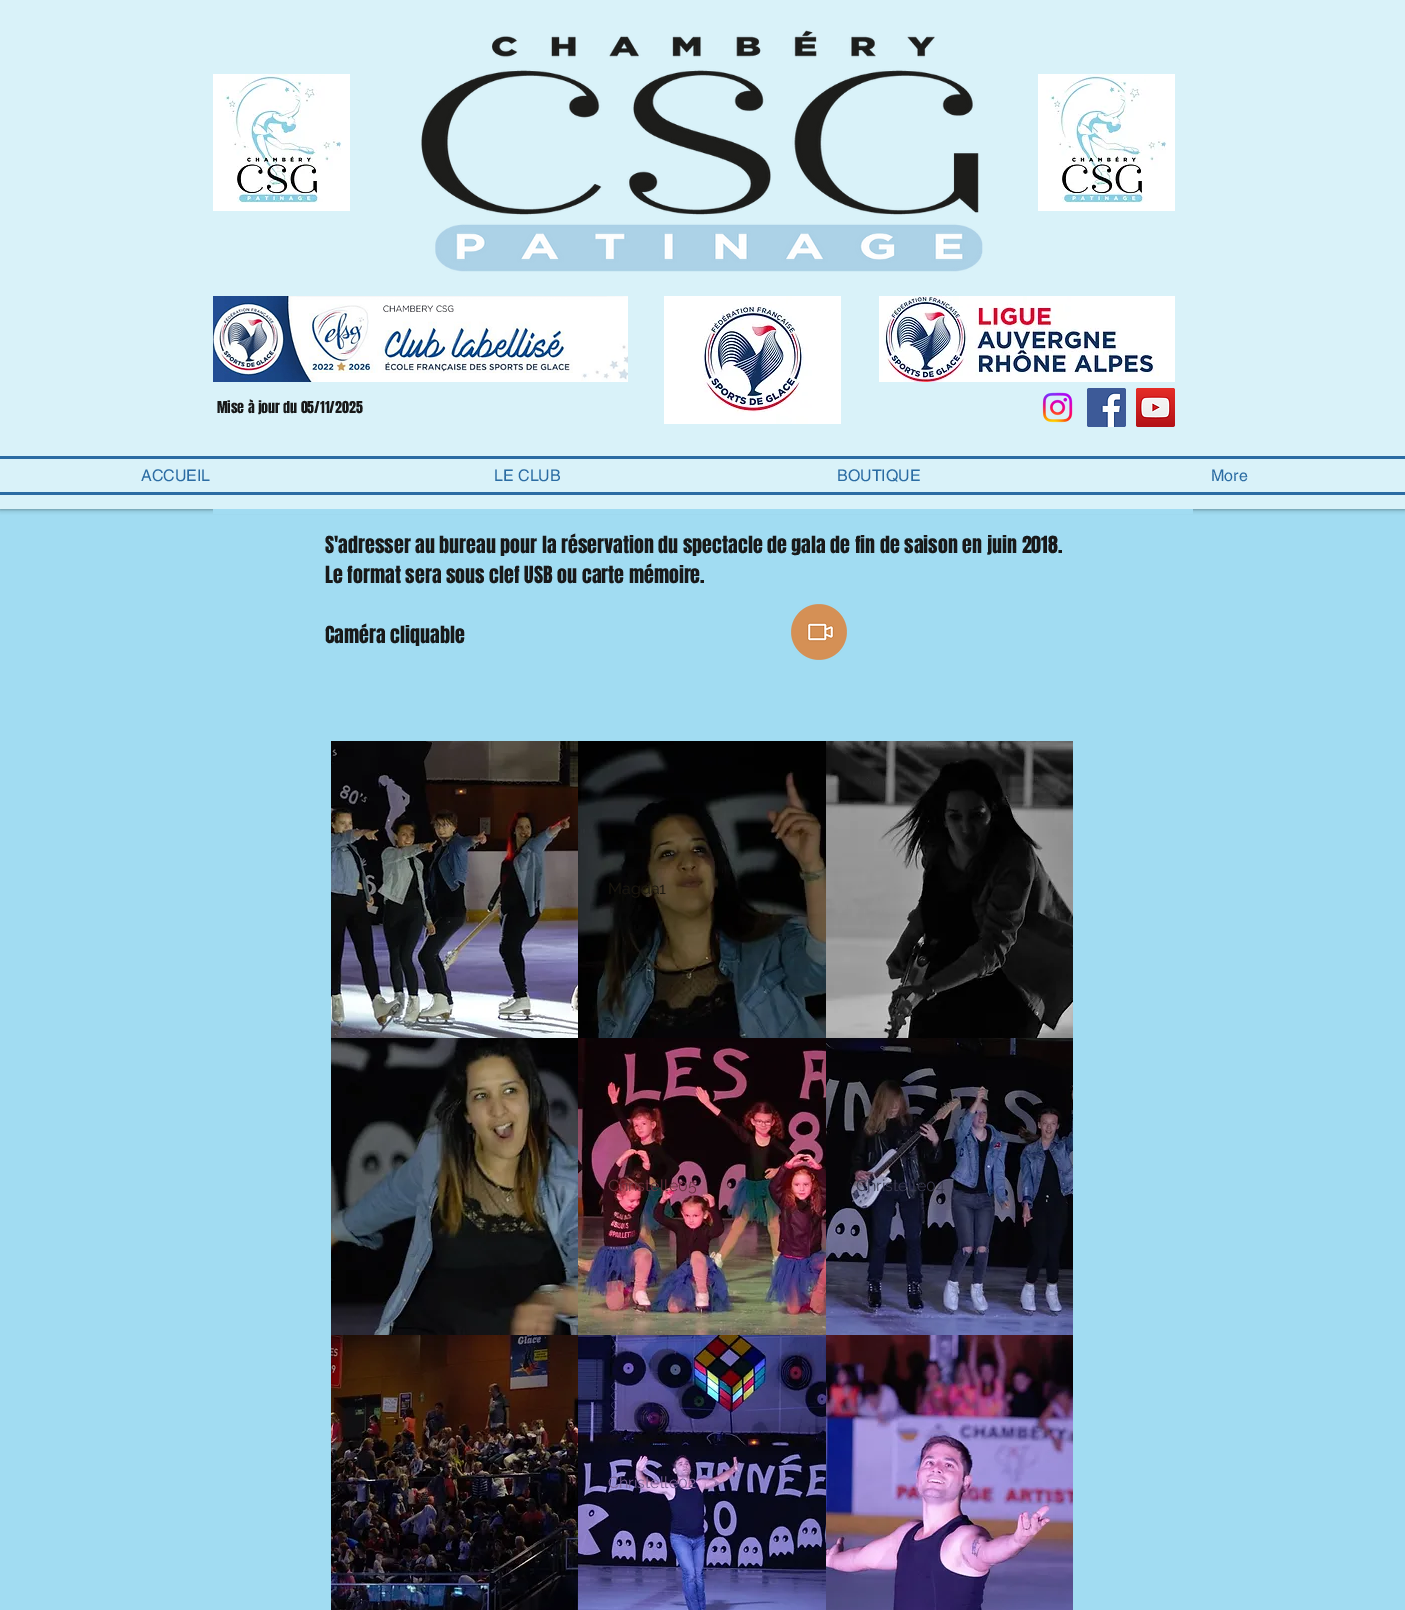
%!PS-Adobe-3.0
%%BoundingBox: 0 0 1405 1610
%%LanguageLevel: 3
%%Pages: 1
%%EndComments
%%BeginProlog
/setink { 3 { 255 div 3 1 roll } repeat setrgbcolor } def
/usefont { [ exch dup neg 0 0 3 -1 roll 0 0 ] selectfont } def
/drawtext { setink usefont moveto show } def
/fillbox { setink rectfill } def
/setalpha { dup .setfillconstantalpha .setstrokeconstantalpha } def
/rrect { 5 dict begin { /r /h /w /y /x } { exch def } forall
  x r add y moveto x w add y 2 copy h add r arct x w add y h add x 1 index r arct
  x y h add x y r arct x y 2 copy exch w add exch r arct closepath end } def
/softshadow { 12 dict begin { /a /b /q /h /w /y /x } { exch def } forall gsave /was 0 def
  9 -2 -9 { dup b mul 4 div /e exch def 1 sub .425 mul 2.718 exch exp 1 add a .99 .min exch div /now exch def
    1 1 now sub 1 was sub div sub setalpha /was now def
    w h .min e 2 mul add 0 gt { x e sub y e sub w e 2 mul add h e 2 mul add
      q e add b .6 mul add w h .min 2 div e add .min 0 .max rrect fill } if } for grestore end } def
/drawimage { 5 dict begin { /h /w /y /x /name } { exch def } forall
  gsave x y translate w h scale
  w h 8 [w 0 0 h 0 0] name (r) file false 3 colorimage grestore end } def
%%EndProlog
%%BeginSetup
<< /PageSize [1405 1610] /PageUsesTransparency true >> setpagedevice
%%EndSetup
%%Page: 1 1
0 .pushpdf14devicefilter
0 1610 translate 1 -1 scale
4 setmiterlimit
0 0 1405 1610 161 220 242 fillbox
0 0 0 setink
0 0 1405 509 0 2.5 0.5 softshadow
0 0 1405 509 217 242 249 fillbox
(assets/img1.rgb) 213 74 137 137 drawimage
(assets/img2.rgb) 421 30 562 242 drawimage
(assets/img1.rgb) 1038 74 137 137 drawimage
(assets/img3.rgb) 213 296 415 86 drawimage
(assets/img4.rgb) 664 296 177 128 drawimage
(assets/img5.rgb) 879 296 296 86 drawimage
(Mise à jour du 05/11/2025) 217 413 /Anton-Regular 14 24 25 25 drawtext
(assets/img6.rgb) 1042 392 31 31 drawimage
(assets/img7.rgb) 1087 388 39 39 drawimage
(assets/img8.rgb) 1136 388 39 39 drawimage
0 456 1405 3 43 108 163 fillbox
0 492 1405 3 43 108 163 fillbox
(ACCUEIL) 141 481 /helvetica-Regular 16 43 108 163 drawtext
(LE CLUB) 494 481 /helvetica-Regular 16 43 108 163 drawtext
(BOUTIQUE) 837 481 /helvetica-Regular 16 43 108 163 drawtext
(More) 1211 481 /helvetica-Regular 16 43 108 163 drawtext
213 509 980 5 161 220 242 fillbox
(S'adresser au bureau pour la réservation du spectacle de gala de fin de saison en juin 2018.) 325 553 /Anton-Regular 20 24 25 25 drawtext
(Le format sera sous clef USB ou carte mémoire.) 325 583 /Anton-Regular 20 24 25 25 drawtext
(Caméra cliquable) 325 643 /Anton-Regular 20 24 25 25 drawtext
(assets/img9.rgb) 791 604 56 56 drawimage
(assets/img10.rgb) 331 741 247 297 drawimage
(assets/img11.rgb) 578 741 248 297 drawimage
(Magda1) 608 894 /Raleway-Regular 16 27 23 15 drawtext
(assets/img12.rgb) 826 741 247 297 drawimage
(assets/img13.rgb) 331 1038 247 297 drawimage
(assets/img14.rgb) 578 1038 248 297 drawimage
(Christelle05) 608 1191 /Raleway-Regular 16 105 49 63 drawtext
(assets/img15.rgb) 826 1038 247 297 drawimage
(Christelle04) 856 1191 /Raleway-Regular 16 57 57 77 drawtext
(assets/img16.rgb) 331 1335 247 275 drawimage
(assets/img17.rgb) 578 1335 248 275 drawimage
(Christelle02) 608 1488 /Raleway-Regular 16 123 98 147 drawtext
(assets/img18.rgb) 826 1335 247 275 drawimage
.poppdf14devicefilter showpage
%%EOF
